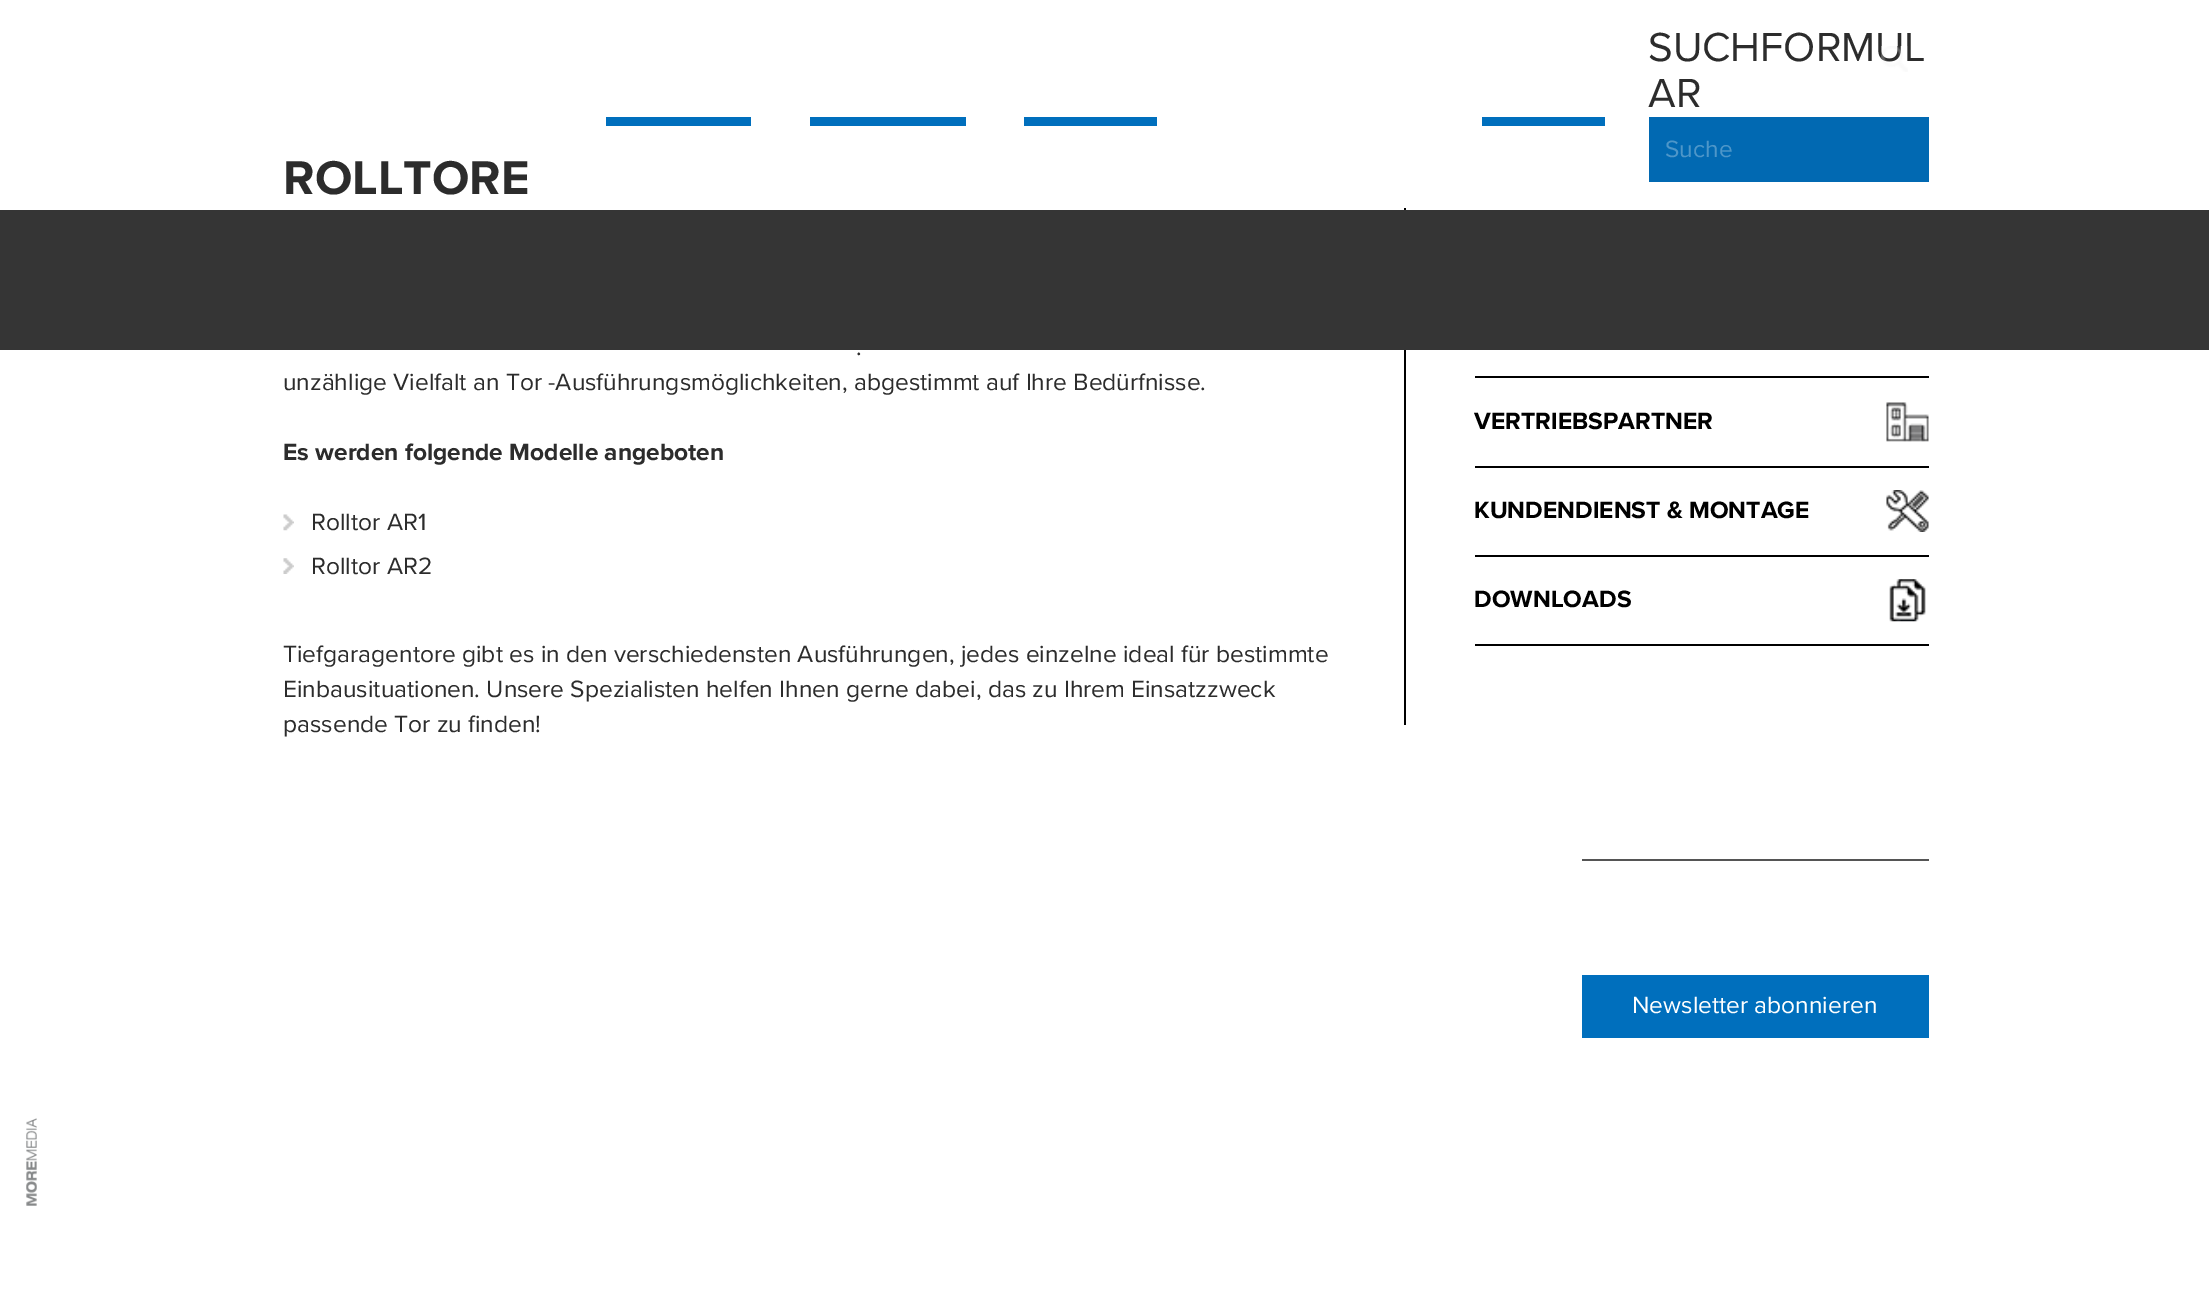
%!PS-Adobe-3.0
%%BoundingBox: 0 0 2209 1290
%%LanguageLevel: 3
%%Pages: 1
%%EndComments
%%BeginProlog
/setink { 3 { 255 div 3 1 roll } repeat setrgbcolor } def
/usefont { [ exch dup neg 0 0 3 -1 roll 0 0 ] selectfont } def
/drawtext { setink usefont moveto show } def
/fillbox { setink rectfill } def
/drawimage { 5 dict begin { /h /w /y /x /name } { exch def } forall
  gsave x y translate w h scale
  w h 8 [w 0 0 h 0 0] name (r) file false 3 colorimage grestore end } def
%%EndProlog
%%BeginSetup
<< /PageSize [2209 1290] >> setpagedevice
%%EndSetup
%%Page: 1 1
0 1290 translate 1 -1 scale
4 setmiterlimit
0 0 2209 1290 255 255 255 fillbox
606 117 145 9 0 111 189 fillbox
810 117 156 9 0 111 189 fillbox
1024 117 133 9 0 111 189 fillbox
1482 117 123 9 0 111 189 fillbox
(SUCHFORMUL) 1648 61 /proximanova-Regular 42 44 44 44 drawtext
(AR) 1648 107 /proximanova-Regular 42 44 44 44 drawtext
(assets/img1.rgb) 1881 46 27 26 drawimage
1649 117 280 65 1 105 178 fillbox
(Suche) 1665 157 /proximanova-Regular 24.5 77 150 201 drawtext
(ROLLTORE) 283 194 /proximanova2-Regular 49 44 44 44 drawtext
(.) 856 355 /proximanova-Regular 24.5 44 44 44 drawtext
(unzählige Vielfalt an Tor -Ausführungsmöglichkeiten, abgestimmt auf Ihre Bedürfnisse.) 283 390 /proximanova-Regular 24.5 44 44 44 drawtext
(Es werden folgende Modelle angeboten) 283 460 /proximanova2-Regular 24.5 44 44 44 drawtext
(assets/img2.rgb) 283 514 11 17 drawimage
(Rolltor AR1) 311 530 /proximanova-Regular 24.5 44 44 44 drawtext
(assets/img3.rgb) 283 558 11 16 drawimage
(Rolltor AR2) 311 574 /proximanova-Regular 24.5 44 44 44 drawtext
(Tiefgaragentore gibt es in den verschiedensten Ausführungen, jedes einzelne ideal für bestimmte) 283 662 /proximanova-Regular 24.5 44 44 44 drawtext
(Einbausituationen. Unsere Spezialisten helfen Ihnen gerne dabei, das zu Ihrem Einsatzzweck) 283 697 /proximanova-Regular 24.5 44 44 44 drawtext
(passende Tor zu finden!) 283 732 /proximanova-Regular 24.5 44 44 44 drawtext
1404 208 2 517 0 0 0 fillbox
1475 376 454 2 0 0 0 fillbox
1475 466 454 2 0 0 0 fillbox
(VERTRIEBSPARTNER) 1474 429 /proximanova2-Regular 24.5 0 0 0 drawtext
(assets/img4.rgb) 1886 402 43 40 drawimage
1475 555 454 2 0 0 0 fillbox
(KUNDENDIENST & MONTAGE) 1474 518 /proximanova2-Regular 24.5 0 0 0 drawtext
(assets/img5.rgb) 1886 490 43 42 drawimage
1475 644 454 2 0 0 0 fillbox
(DOWNLOADS) 1474 607 /proximanova2-Regular 24.5 0 0 0 drawtext
(assets/img6.rgb) 1889 579 37 43 drawimage
0 210 2209 140 53 53 53 fillbox
1582 859 347 2 85 85 85 fillbox
1582 975 347 63 0 111 189 fillbox
(Newsletter abonnieren) 1632 1013 /proximanova-Regular 24.5 255 255 255 drawtext
(assets/img7.rgb) 26 1118 11 88 drawimage
showpage
%%EOF
